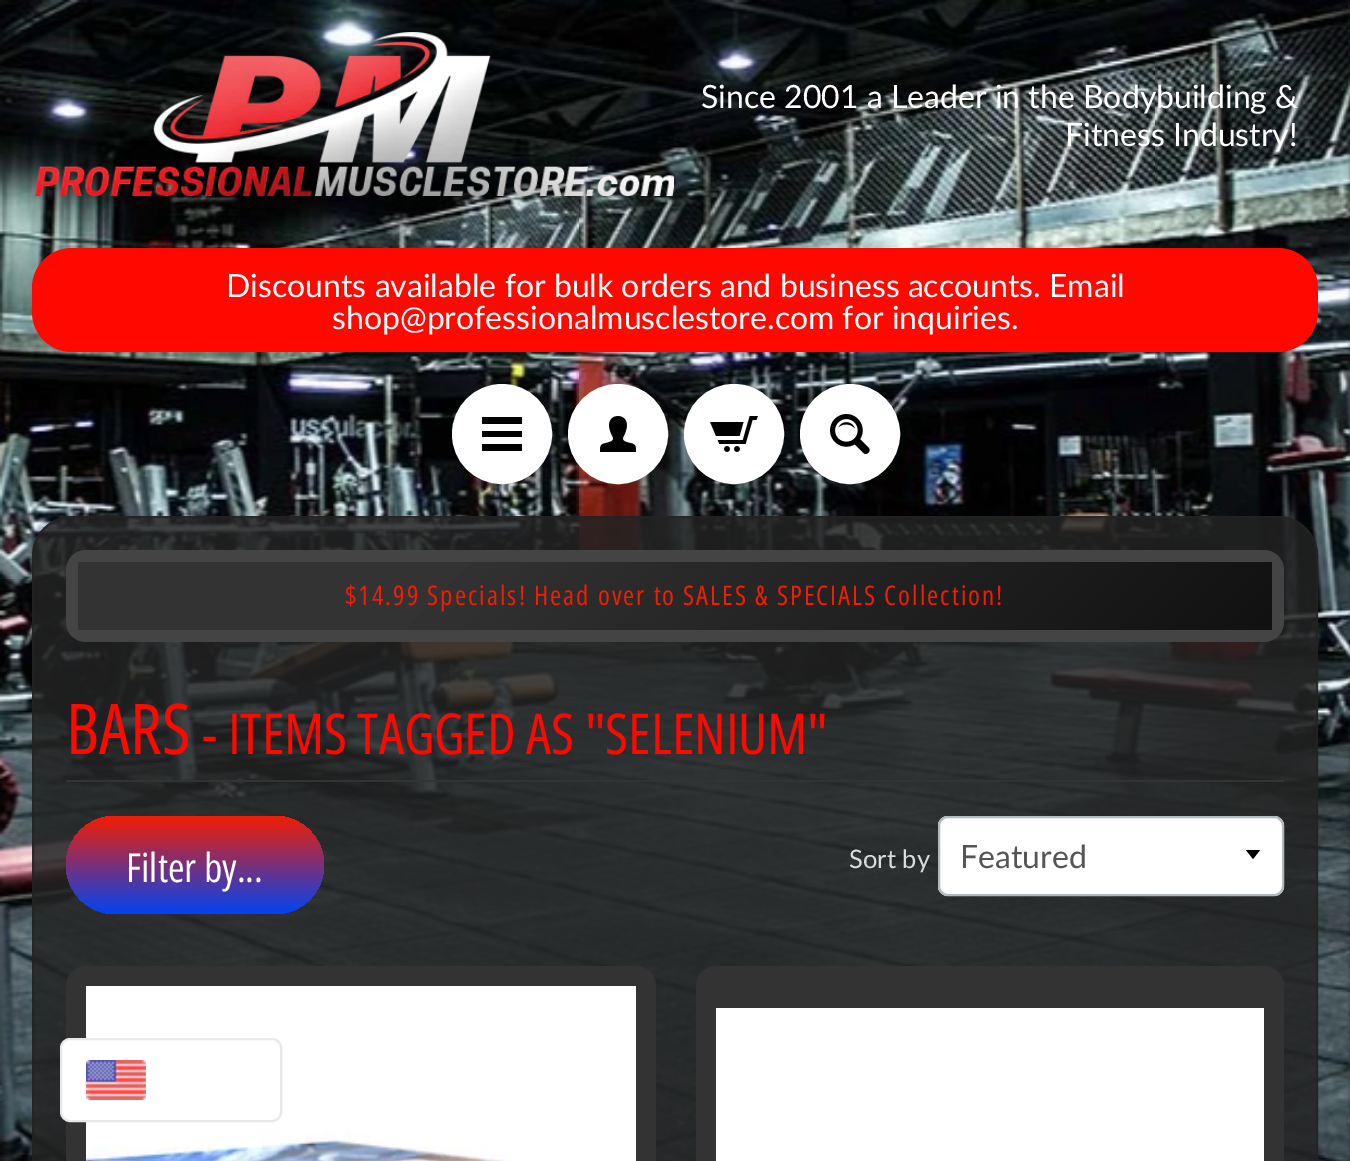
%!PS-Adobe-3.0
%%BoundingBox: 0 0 1350 1161
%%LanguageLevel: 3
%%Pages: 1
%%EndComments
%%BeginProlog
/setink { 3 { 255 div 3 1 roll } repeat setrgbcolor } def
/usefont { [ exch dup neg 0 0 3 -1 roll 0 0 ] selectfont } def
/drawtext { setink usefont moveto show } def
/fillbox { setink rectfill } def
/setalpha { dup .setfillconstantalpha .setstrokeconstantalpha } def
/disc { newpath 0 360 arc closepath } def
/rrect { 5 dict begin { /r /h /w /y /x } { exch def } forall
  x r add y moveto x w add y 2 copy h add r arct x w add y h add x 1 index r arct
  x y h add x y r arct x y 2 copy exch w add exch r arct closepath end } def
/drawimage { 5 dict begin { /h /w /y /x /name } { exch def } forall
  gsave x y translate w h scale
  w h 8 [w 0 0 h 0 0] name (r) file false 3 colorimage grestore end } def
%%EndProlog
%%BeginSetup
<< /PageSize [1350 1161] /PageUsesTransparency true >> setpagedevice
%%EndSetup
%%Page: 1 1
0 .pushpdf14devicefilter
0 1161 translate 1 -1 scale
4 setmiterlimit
0 0 1350 1161 255 255 255 fillbox
(assets/img1.rgb) 0 0 1350 1161 drawimage
(assets/img2.rgb) 34 32 640 164 drawimage
(Since 2001 a Leader in the Bodybuilding &) 701 108 /Lato-Regular 32 255 255 255 drawtext
(Fitness Industry!) 1065 146 /Lato-Regular 32 255 255 255 drawtext
255 8 0 setink
32 248 1286 104 40 rrect fill
(Discounts available for bulk orders and business accounts. Email) 226 297 /Lato-Regular 32 255 255 255 drawtext
(shop@professionalmusclestore.com for inquiries.) 332 329 /Lato-Regular 32 255 255 255 drawtext
502 434 47 disc gsave fill grestore
6 setlinewidth
stroke
0 0 0 setink
522 424 moveto 482 424 lineto 482 417 lineto 522 417 lineto closepath 522 431 moveto 482 431 lineto 482 437 lineto 522 437 lineto closepath 522 444 moveto 482 444 lineto 482 451 lineto 522 451 lineto closepath fill
255 255 255 setink
618 434 47 disc gsave fill grestore
stroke
(assets/img3.rgb) 600 416 36 36 drawimage
734 434 47 disc gsave fill grestore
stroke
(assets/img4.rgb) 710 416 48 36 drawimage
850 434 47 disc gsave fill grestore
stroke
(assets/img5.rgb) 830 414 40 40 drawimage
0.85 setalpha
34 34 34 setink
32 516 1286 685 40 rrect fill
0.7 setalpha
2 setlinewidth
33 517 1284 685 39 rrect stroke
1 setalpha
68 68 68 setink
66 550 1218 92 20 rrect fill
gsave 78 562 moveto 1272 562 lineto 1272 630 lineto 78 630 lineto closepath clip newpath
<< /ShadingType 2 /ColorSpace /DeviceRGB /Coords [359 281 991 912] /Extend [true true] /Function << /FunctionType 3 /Domain [0 1] /Functions [<< /FunctionType 2 /Domain [0 1] /C0 [0.2 0.2 0.2] /C1 [0.2 0.2 0.2] /N 1 >> << /FunctionType 2 /Domain [0 1] /C0 [0.2 0.2 0.2] /C1 [0.067 0.067 0.067] /N 1 >>] /Bounds [0.3] /Encode [0 1 0 1] >> >> shfill grestore
/OpenSansCondensed-Regular 27 usefont
243 29 1 setink
345 605 moveto 2 0 ($14.99 Specials! Head over to SALES & SPECIALS Collection!) ashow
66 780 1218 2 51 51 51 fillbox
(BARS) 66 754 /OpenSansCondensed-Regular 70 255 8 0 drawtext
(- ITEMS TAGGED AS "SELENIUM") 202 754 /OpenSansCondensed-Regular 56.25 255 8 0 drawtext
gsave 66 816 258 98 49 rrect clip newpath
<< /ShadingType 2 /ColorSpace /DeviceRGB /Coords [195 816 195 914] /Extend [true true] /Function << /FunctionType 2 /Domain [0 1] /C0 [0.953 0.114 0.004] /C1 [0.004 0.267 0.953] /N 1 >> >> shfill grestore
(Filter by...) 126 882 /OpenSansCondensed-Regular 40 255 255 255 drawtext
(Sort by) 849 868 /Lato-Regular 25.5 221 221 221 drawtext
255 255 255 setink
938 816 346 80 10 rrect fill
0 0 0 setink
1246 850 moveto 1253 859 lineto 1260 850 lineto closepath fill
178 185 189 setink
939 817 344 78 9 rrect stroke
(Featured) 960 868 /Lato-Regular 32 85 85 85 drawtext
51 51 51 setink
66 966 590 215 20 rrect fill
(assets/img6.rgb) 86 986 550 175 drawimage
696 966 588 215 20 rrect fill
716 1008 548 153 255 255 255 fillbox
61 1039 220 82 9 rrect gsave fill grestore
232 232 232 setink
stroke
(assets/img7.rgb) 86 1060 60 40 drawimage
.poppdf14devicefilter showpage
%%EOF
